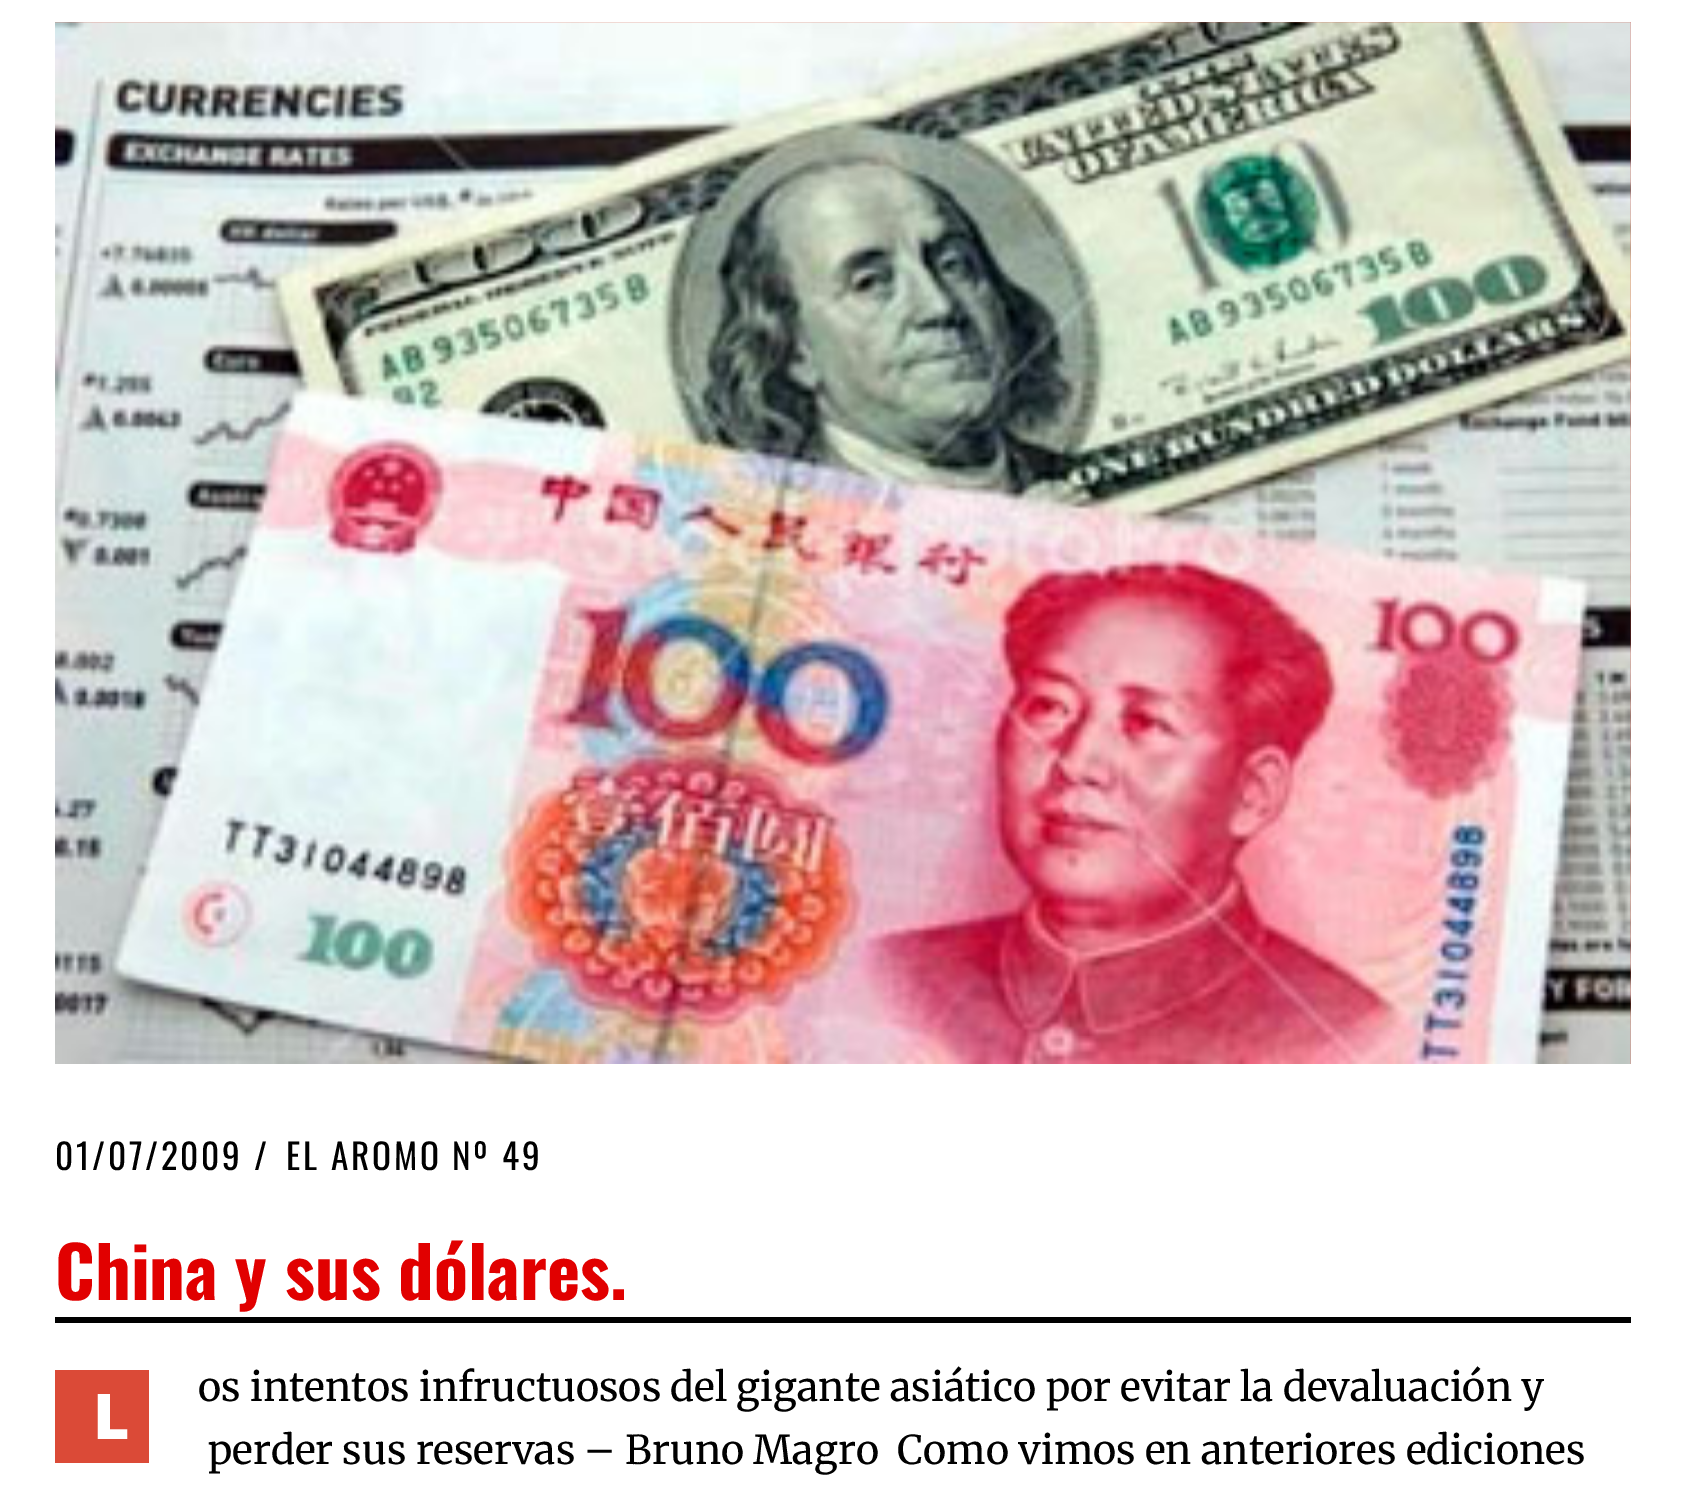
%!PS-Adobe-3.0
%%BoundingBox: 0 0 1685 1503
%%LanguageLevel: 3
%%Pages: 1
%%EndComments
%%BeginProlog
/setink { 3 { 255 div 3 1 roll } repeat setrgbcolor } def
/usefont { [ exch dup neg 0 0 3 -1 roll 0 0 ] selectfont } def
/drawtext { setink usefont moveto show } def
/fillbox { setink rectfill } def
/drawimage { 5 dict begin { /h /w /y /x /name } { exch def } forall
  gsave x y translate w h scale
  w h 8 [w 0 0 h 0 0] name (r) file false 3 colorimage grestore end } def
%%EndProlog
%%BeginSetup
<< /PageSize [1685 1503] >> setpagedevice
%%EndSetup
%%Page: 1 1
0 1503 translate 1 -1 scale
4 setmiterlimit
0 0 1685 1503 255 255 255 fillbox
55 22 1576 1042 219 74 55 fillbox
(assets/img1.rgb) 55 22 1576 1042 drawimage
55 1317 1576 6 0 0 0 fillbox
/Oswald-Regular 35.25 usefont
55 1170 moveto 2.75 0 (01/07/2009 /) ashow
286 1170 moveto 2.75 0 (EL AROMO Nº 49) ashow
(China y sus dólares.) 55 1300 /Oswald-Bold 70.5 225 0 0 drawtext
55 1370 94 93 219 74 55 fillbox
(L) 93 1439 /NotoSans-Black 63 255 255 255 drawtext
(os intentos infructuosos del gigante asiático por evitar la devaluación y) 198 1401 /Merriweather-Regular 39.6 0 0 0 drawtext
(perder sus reservas – Bruno Magro  Como vimos en anteriores ediciones) 208 1464 /Merriweather-Regular 39.6 0 0 0 drawtext
showpage
%%EOF
